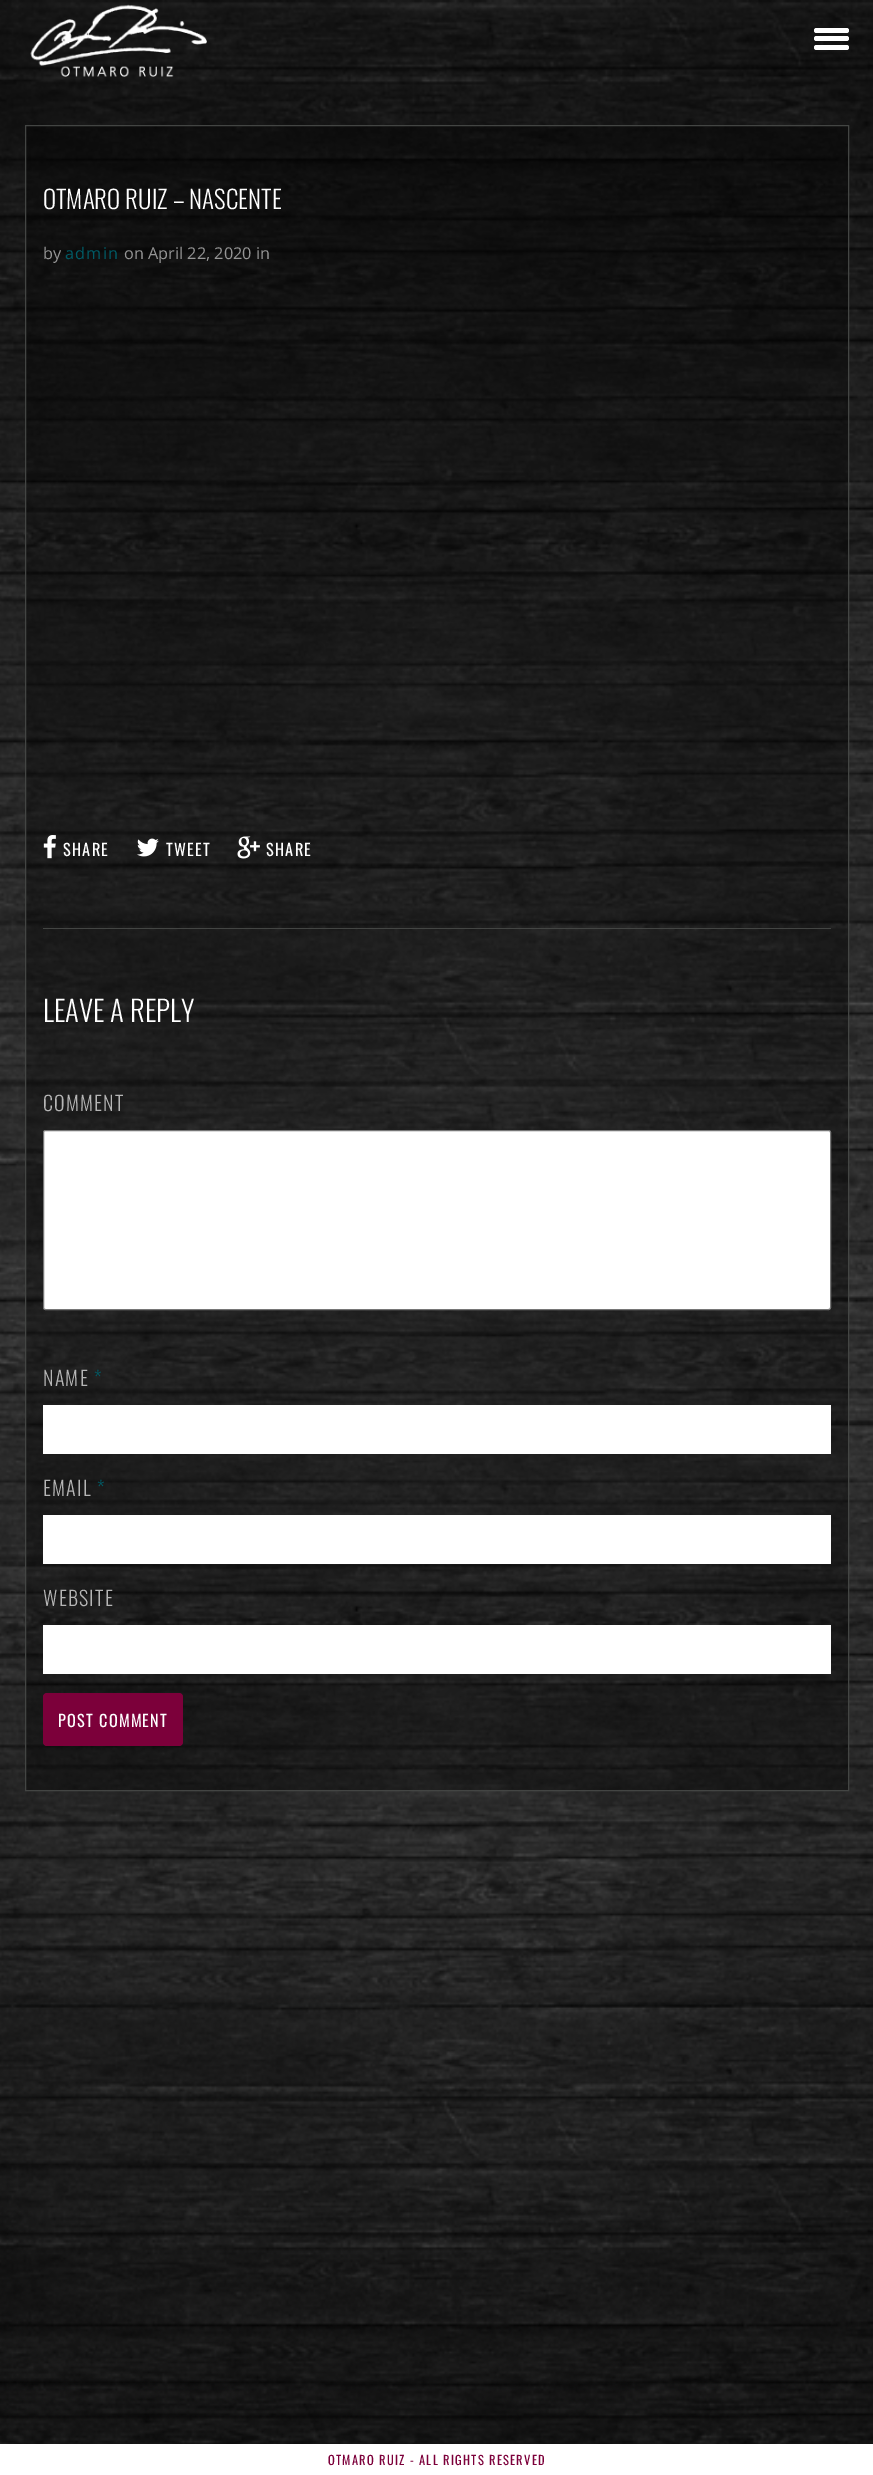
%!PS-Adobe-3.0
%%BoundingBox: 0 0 873 2475
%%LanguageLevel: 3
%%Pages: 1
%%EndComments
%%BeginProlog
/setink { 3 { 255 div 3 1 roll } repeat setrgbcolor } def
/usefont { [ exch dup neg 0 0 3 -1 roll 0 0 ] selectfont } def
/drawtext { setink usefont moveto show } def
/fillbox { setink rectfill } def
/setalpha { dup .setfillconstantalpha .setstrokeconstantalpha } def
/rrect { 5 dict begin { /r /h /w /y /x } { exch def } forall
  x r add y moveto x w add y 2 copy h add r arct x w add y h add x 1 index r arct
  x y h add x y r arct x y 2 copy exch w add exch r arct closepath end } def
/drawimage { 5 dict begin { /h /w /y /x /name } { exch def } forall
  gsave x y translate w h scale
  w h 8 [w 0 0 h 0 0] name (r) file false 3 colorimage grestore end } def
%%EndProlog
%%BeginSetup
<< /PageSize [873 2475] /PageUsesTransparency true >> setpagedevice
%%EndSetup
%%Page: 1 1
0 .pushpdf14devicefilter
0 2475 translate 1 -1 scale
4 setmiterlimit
0 0 873 2475 255 255 255 fillbox
(assets/img1.rgb) 0 0 873 2444 drawimage
(assets/img2.rgb) 30 4 177 73 drawimage
814 28 35 5 2.5 rrect fill
814 36 35 5 2.5 rrect fill
814 45 35 5 2.5 rrect fill
0.4 setalpha
1 1 1 setink
25.5 125.5 moveto 848.5 125.5 lineto 848.5 1790.5 lineto 25.5 1790.5 lineto closepath fill
1 setalpha
67 69 67 setink
25.5 125.5 moveto 848.5 125.5 lineto 848.5 1790.5 lineto 25.5 1790.5 lineto closepath stroke
(OTMARO RUIZ – NASCENTE) 43 209 /Oswald-Light 25 255 255 255 drawtext
(by) 43 259 /OpenSans-Regular 16.25 150 150 150 drawtext
0 91 102 setink
65 259 moveto 1.25 0 (admin) ashow
(on April 22, 2020 in) 124 259 /OpenSans-Regular 16.25 150 150 150 drawtext
(assets/img3.rgb) 43 835 13 24 drawimage
/Oswald-Regular 16.25 usefont
255 255 255 setink
63 856 moveto 1.25 0 (SHARE) ashow
(assets/img4.rgb) 137 838 22 19 drawimage
166 856 moveto 1.25 0 (TWEET) ashow
(assets/img5.rgb) 237 836 23 23 drawimage
266 856 moveto 1.25 0 (SHARE) ashow
43 928 788 1 67 69 67 fillbox
(LEAVE A REPLY) 43 1022 /Oswald-Light 28.75 255 255 255 drawtext
/Oswald-Light 20 usefont
182 182 182 setink
43 1111 moveto 1.25 0 (COMMENT) ashow
255 255 255 setink
43.5 1130.5 787 179 2 rrect gsave fill grestore
118 118 118 setink
stroke
182 182 182 setink
43 1386 moveto 1.25 0 (NAME) ashow
0 91 102 setink
94 1386 moveto 1.25 0 (*) ashow
43 1405 788 49 255 255 255 fillbox
182 182 182 setink
43 1496 moveto 1.25 0 (EMAIL) ashow
0 91 102 setink
97 1496 moveto 1.25 0 (*) ashow
43 1515 788 49 255 255 255 fillbox
182 182 182 setink
43 1606 moveto 1.25 0 (WEBSITE) ashow
43 1625 788 49 255 255 255 fillbox
124 0 58 setink
43 1693 140 53 4 rrect fill
/Oswald-Regular 16.25 usefont
255 255 255 setink
58 1727 moveto 1.25 0 (POST COMMENT) ashow
/Oswald-Regular 12.5 usefont
124 0 58 setink
328 2465 moveto 1.25 0 (OTMARO RUIZ - ALL RIGHTS RESERVED) ashow
.poppdf14devicefilter showpage
%%EOF
